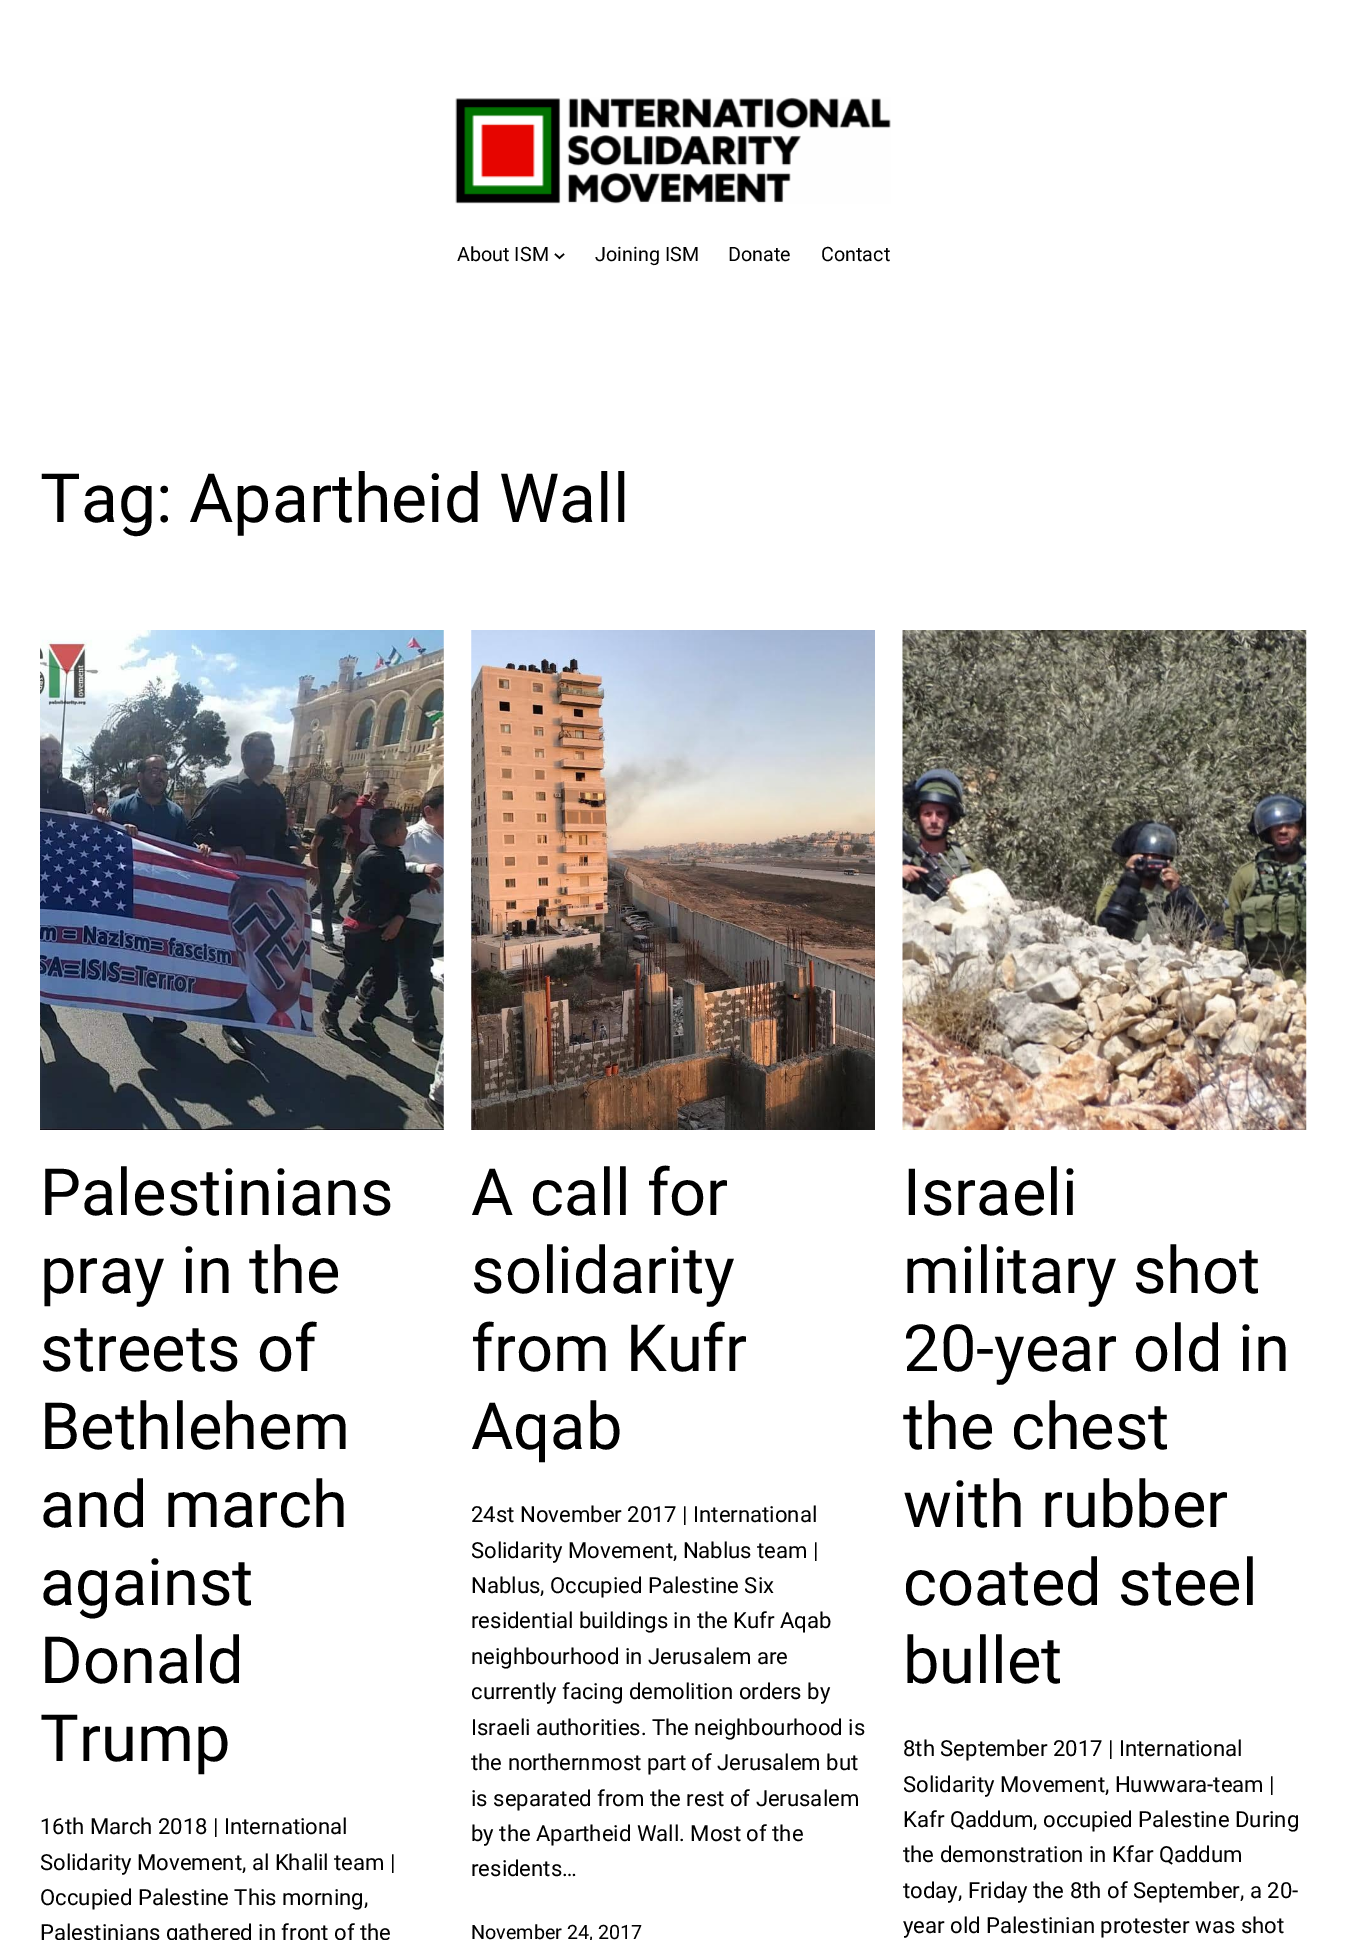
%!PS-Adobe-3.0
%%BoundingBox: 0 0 1346 1940
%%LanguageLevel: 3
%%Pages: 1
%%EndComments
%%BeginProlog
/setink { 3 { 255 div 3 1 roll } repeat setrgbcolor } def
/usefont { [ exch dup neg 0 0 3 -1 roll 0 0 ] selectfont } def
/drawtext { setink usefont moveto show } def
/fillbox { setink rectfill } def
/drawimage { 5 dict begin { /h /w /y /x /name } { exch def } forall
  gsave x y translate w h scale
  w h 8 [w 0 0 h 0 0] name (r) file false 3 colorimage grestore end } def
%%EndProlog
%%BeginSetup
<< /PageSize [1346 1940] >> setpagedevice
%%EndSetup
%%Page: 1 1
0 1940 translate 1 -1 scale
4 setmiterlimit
0 0 1346 1940 255 255 255 fillbox
(assets/img1.rgb) 455 97 436 107 drawimage
(About ISM) 457 261 /Roboto-Regular 19.75 0 0 0 drawtext
1.5 setlinewidth
555 254 moveto 559.5 258 lineto 564 254 lineto stroke
(Joining ISM) 595 261 /Roboto-Regular 19.75 0 0 0 drawtext
(Donate) 728 261 /Roboto-Regular 19.75 0 0 0 drawtext
(Contact) 821 261 /Roboto-Regular 19.75 0 0 0 drawtext
(Tag: Apartheid Wall) 40 522 /Roboto-Regular 68 0 0 0 drawtext
(assets/img2.rgb) 40 630 404 500 drawimage
(Palestinians) 40 1215 /Roboto-Regular 65 0 0 0 drawtext
(pray in the) 40 1293 /Roboto-Regular 65 0 0 0 drawtext
(streets of) 40 1371 /Roboto-Regular 65 0 0 0 drawtext
(Bethlehem) 40 1449 /Roboto-Regular 65 0 0 0 drawtext
(and march) 40 1527 /Roboto-Regular 65 0 0 0 drawtext
(against) 40 1605 /Roboto-Regular 65 0 0 0 drawtext
(Donald) 40 1683 /Roboto-Regular 65 0 0 0 drawtext
(Trump) 40 1761 /Roboto-Regular 65 0 0 0 drawtext
(16th March 2018 | International) 40 1834 /Roboto-Regular 22.1 0 0 0 drawtext
(Solidarity Movement, al Khalil team |) 40 1870 /Roboto-Regular 22.1 0 0 0 drawtext
(Occupied Palestine This morning,) 40 1905 /Roboto-Regular 22.1 0 0 0 drawtext
(Palestinians gathered in front of the) 40 1940 /Roboto-Regular 22.1 0 0 0 drawtext
(assets/img3.rgb) 471 630 404 500 drawimage
(A call for) 471 1215 /Roboto-Regular 65 0 0 0 drawtext
(solidarity) 471 1293 /Roboto-Regular 65 0 0 0 drawtext
(from Kufr) 471 1371 /Roboto-Regular 65 0 0 0 drawtext
(Aqab) 471 1449 /Roboto-Regular 65 0 0 0 drawtext
(24st November 2017 | International) 471 1522 /Roboto-Regular 22.1 0 0 0 drawtext
(Solidarity Movement, Nablus team |) 471 1558 /Roboto-Regular 22.1 0 0 0 drawtext
(Nablus, Occupied Palestine Six) 471 1593 /Roboto-Regular 22.1 0 0 0 drawtext
(residential buildings in the Kufr Aqab) 471 1628 /Roboto-Regular 22.1 0 0 0 drawtext
(neighbourhood in Jerusalem are) 471 1664 /Roboto-Regular 22.1 0 0 0 drawtext
(currently facing demolition orders by) 471 1699 /Roboto-Regular 22.1 0 0 0 drawtext
(Israeli authorities. The neighbourhood is) 471 1735 /Roboto-Regular 22.1 0 0 0 drawtext
(the northernmost part of Jerusalem but) 471 1770 /Roboto-Regular 22.1 0 0 0 drawtext
(is separated from the rest of Jerusalem) 471 1806 /Roboto-Regular 22.1 0 0 0 drawtext
(by the Apartheid Wall. Most of the) 471 1841 /Roboto-Regular 22.1 0 0 0 drawtext
(residents…) 471 1876 /Roboto-Regular 22.1 0 0 0 drawtext
(November 24, 2017) 471 1939 /Roboto-Regular 19.75 0 0 0 drawtext
(assets/img4.rgb) 902 630 405 500 drawimage
(Israeli) 903 1215 /Roboto-Regular 65 0 0 0 drawtext
(military shot) 903 1293 /Roboto-Regular 65 0 0 0 drawtext
(20-year old in) 903 1371 /Roboto-Regular 65 0 0 0 drawtext
(the chest) 903 1449 /Roboto-Regular 65 0 0 0 drawtext
(with rubber) 903 1527 /Roboto-Regular 65 0 0 0 drawtext
(coated steel) 903 1605 /Roboto-Regular 65 0 0 0 drawtext
(bullet) 903 1683 /Roboto-Regular 65 0 0 0 drawtext
(8th September 2017 | International) 903 1756 /Roboto-Regular 22.1 0 0 0 drawtext
(Solidarity Movement, Huwwara-team |) 903 1792 /Roboto-Regular 22.1 0 0 0 drawtext
(Kafr Qaddum, occupied Palestine During) 903 1827 /Roboto-Regular 22.1 0 0 0 drawtext
(the demonstration in Kfar Qaddum) 903 1862 /Roboto-Regular 22.1 0 0 0 drawtext
(today, Friday the 8th of September, a 20-) 903 1898 /Roboto-Regular 22.1 0 0 0 drawtext
(year old Palestinian protester was shot) 903 1933 /Roboto-Regular 22.1 0 0 0 drawtext
showpage
%%EOF
